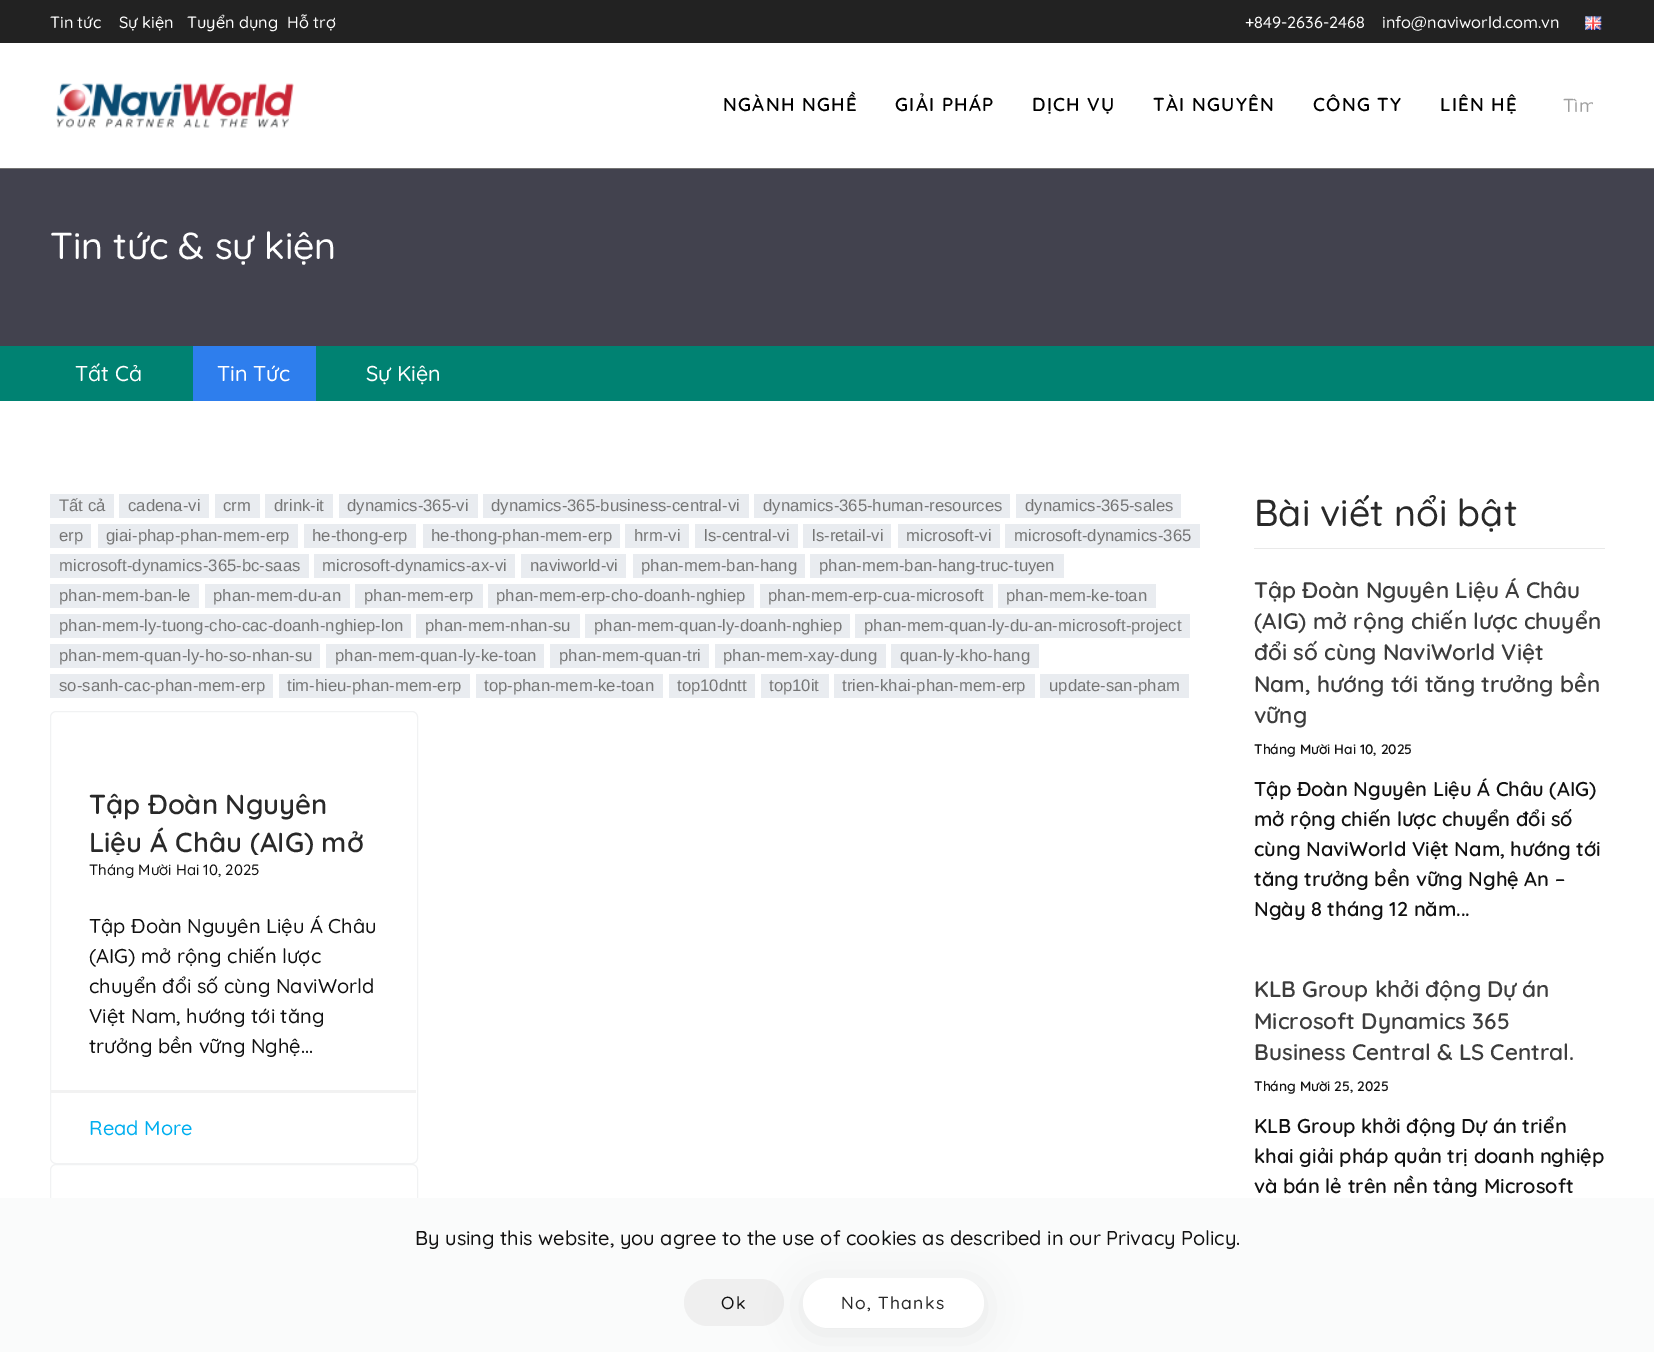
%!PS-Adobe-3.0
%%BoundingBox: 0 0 1654 1352
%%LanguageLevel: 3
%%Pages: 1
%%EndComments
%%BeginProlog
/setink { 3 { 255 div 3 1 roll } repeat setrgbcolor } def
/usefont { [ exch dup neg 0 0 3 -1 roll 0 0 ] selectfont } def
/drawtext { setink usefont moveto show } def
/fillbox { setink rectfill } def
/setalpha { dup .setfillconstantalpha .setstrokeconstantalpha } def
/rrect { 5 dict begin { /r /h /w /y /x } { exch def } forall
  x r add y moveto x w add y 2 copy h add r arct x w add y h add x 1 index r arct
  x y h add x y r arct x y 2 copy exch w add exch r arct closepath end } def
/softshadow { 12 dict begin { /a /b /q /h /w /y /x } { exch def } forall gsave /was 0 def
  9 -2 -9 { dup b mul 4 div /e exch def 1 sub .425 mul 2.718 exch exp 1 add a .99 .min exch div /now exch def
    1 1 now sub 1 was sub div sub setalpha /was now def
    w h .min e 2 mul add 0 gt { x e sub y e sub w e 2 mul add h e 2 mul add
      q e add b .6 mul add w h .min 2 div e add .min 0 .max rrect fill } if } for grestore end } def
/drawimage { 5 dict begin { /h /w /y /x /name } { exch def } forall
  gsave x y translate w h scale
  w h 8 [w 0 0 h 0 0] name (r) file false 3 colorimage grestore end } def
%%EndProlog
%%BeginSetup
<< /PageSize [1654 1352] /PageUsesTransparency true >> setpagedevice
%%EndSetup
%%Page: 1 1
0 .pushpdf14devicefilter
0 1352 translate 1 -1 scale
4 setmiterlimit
0 0 1654 1352 255 255 255 fillbox
0 0 1654 43 34 34 34 fillbox
(Tin tức) 50 28 /Quicksand-Medium 16.25 255 255 255 drawtext
(Sự kiện) 119 28 /Quicksand-Medium 16.25 255 255 255 drawtext
(Tuyển dụng) 187 28 /Quicksand-Medium 16.25 255 255 255 drawtext
(Hỗ trợ) 287 28 /Quicksand-Medium 16.25 255 255 255 drawtext
(+849-2636-2468) 1245 28 /Quicksand-Medium 16.25 255 255 255 drawtext
(info@naviworld.com.vn) 1382 28 /Quicksand-Medium 16.25 255 255 255 drawtext
(assets/img1.rgb) 1585 16 17 14 drawimage
0 168 1654 1 115 115 115 fillbox
(assets/img2.rgb) 56 83 238 45 drawimage
/Quicksand-SemiBold 18.75 usefont
0 0 0 setink
723 111 moveto 1.25 0 (NGÀNH NGHỀ) ashow
895 111 moveto 1.25 0 (GIẢI PHÁP) ashow
1032 111 moveto 1.25 0 (DỊCH VỤ) ashow
1153 111 moveto 1.25 0 (TÀI NGUYÊN) ashow
1313 111 moveto 1.25 0 (CÔNG TY) ashow
1440 111 moveto 1.25 0 (LIÊN HỆ) ashow
gsave
1563 94 30 24 rectclip
(Tìm) 1563 112 /Quicksand-Medium 18.75 160 160 160 drawtext
grestore
0 169 1654 177 66 66 78 fillbox
(Tin tức & sự kiện) 50 259 /Quicksand-Medium 37.5 255 255 255 drawtext
0 346 1654 55 0 130 114 fillbox
(Tất Cả) 75 381 /Quicksand-Medium 21.5 255 255 255 drawtext
193 346 123 55 46 126 237 fillbox
(Tin Tức) 217 381 /Quicksand-Medium 21.5 255 255 255 drawtext
(Sự Kiện) 366 381 /Quicksand-Medium 21.5 255 255 255 drawtext
50 494 64 24 233 236 240 fillbox
(Tất cả) 59 511 /LiberationSans-Regular 16.7 117 117 117 drawtext
119 494 90 24 233 236 240 fillbox
(cadena-vi) 128 511 /LiberationSans-Regular 16.7 117 117 117 drawtext
215 494 45 24 233 236 240 fillbox
(crm) 223 511 /LiberationSans-Regular 16.7 117 117 117 drawtext
265 494 68 24 233 236 240 fillbox
(drink-it) 274 511 /LiberationSans-Regular 16.7 117 117 117 drawtext
339 494 139 24 233 236 240 fillbox
(dynamics-365-vi) 347 511 /LiberationSans-Regular 16.7 117 117 117 drawtext
483 494 266 24 233 236 240 fillbox
(dynamics-365-business-central-vi) 491 511 /LiberationSans-Regular 16.7 117 117 117 drawtext
754 494 256 24 233 236 240 fillbox
(dynamics-365-human-resources) 763 511 /LiberationSans-Regular 16.7 117 117 117 drawtext
1016 494 165 24 233 236 240 fillbox
(dynamics-365-sales) 1025 511 /LiberationSans-Regular 16.7 117 117 117 drawtext
50 524 41 24 233 236 240 fillbox
(erp) 59 541 /LiberationSans-Regular 16.7 117 117 117 drawtext
98 524 200 24 233 236 240 fillbox
(giai-phap-phan-mem-erp) 106 541 /LiberationSans-Regular 16.7 117 117 117 drawtext
304 524 112 24 233 236 240 fillbox
(he-thong-erp) 312 541 /LiberationSans-Regular 16.7 117 117 117 drawtext
423 524 197 24 233 236 240 fillbox
(he-thong-phan-mem-erp) 431 541 /LiberationSans-Regular 16.7 117 117 117 drawtext
625 524 64 24 233 236 240 fillbox
(hrm-vi) 634 541 /LiberationSans-Regular 16.7 117 117 117 drawtext
695 524 103 24 233 236 240 fillbox
(ls-central-vi) 704 541 /LiberationSans-Regular 16.7 117 117 117 drawtext
803 524 88 24 233 236 240 fillbox
(ls-retail-vi) 812 541 /LiberationSans-Regular 16.7 117 117 117 drawtext
898 524 102 24 233 236 240 fillbox
(microsoft-vi) 906 541 /LiberationSans-Regular 16.7 117 117 117 drawtext
1005 524 195 24 233 236 240 fillbox
(microsoft-dynamics-365) 1014 541 /LiberationSans-Regular 16.7 117 117 117 drawtext
50 554 259 24 233 236 240 fillbox
(microsoft-dynamics-365-bc-saas) 59 571 /LiberationSans-Regular 16.7 117 117 117 drawtext
314 554 201 24 233 236 240 fillbox
(microsoft-dynamics-ax-vi) 322 571 /LiberationSans-Regular 16.7 117 117 117 drawtext
521 554 105 24 233 236 240 fillbox
(naviworld-vi) 530 571 /LiberationSans-Regular 16.7 117 117 117 drawtext
633 554 172 24 233 236 240 fillbox
(phan-mem-ban-hang) 641 571 /LiberationSans-Regular 16.7 117 117 117 drawtext
810 554 254 24 233 236 240 fillbox
(phan-mem-ban-hang-truc-tuyen) 819 571 /LiberationSans-Regular 16.7 117 117 117 drawtext
50 584 149 24 233 236 240 fillbox
(phan-mem-ban-le) 59 601 /LiberationSans-Regular 16.7 117 117 117 drawtext
205 584 145 24 233 236 240 fillbox
(phan-mem-du-an) 213 601 /LiberationSans-Regular 16.7 117 117 117 drawtext
355 584 128 24 233 236 240 fillbox
(phan-mem-erp) 364 601 /LiberationSans-Regular 16.7 117 117 117 drawtext
488 584 266 24 233 236 240 fillbox
(phan-mem-erp-cho-doanh-nghiep) 496 601 /LiberationSans-Regular 16.7 117 117 117 drawtext
760 584 233 24 233 236 240 fillbox
(phan-mem-erp-cua-microsoft) 768 601 /LiberationSans-Regular 16.7 117 117 117 drawtext
998 584 158 24 233 236 240 fillbox
(phan-mem-ke-toan) 1006 601 /LiberationSans-Regular 16.7 117 117 117 drawtext
50 614 361 24 233 236 240 fillbox
(phan-mem-ly-tuong-cho-cac-doanh-nghiep-lon) 59 631 /LiberationSans-Regular 16.7 117 117 117 drawtext
416 614 164 24 233 236 240 fillbox
(phan-mem-nhan-su) 425 631 /LiberationSans-Regular 16.7 117 117 117 drawtext
585 614 265 24 233 236 240 fillbox
(phan-mem-quan-ly-doanh-nghiep) 594 631 /LiberationSans-Regular 16.7 117 117 117 drawtext
855 614 335 24 233 236 240 fillbox
(phan-mem-quan-ly-du-an-microsoft-project) 864 631 /LiberationSans-Regular 16.7 117 117 117 drawtext
50 644 270 24 233 236 240 fillbox
(phan-mem-quan-ly-ho-so-nhan-su) 59 661 /LiberationSans-Regular 16.7 117 117 117 drawtext
326 644 218 24 233 236 240 fillbox
(phan-mem-quan-ly-ke-toan) 335 661 /LiberationSans-Regular 16.7 117 117 117 drawtext
550 644 159 24 233 236 240 fillbox
(phan-mem-quan-tri) 559 661 /LiberationSans-Regular 16.7 117 117 117 drawtext
715 644 171 24 233 236 240 fillbox
(phan-mem-xay-dung) 723 661 /LiberationSans-Regular 16.7 117 117 117 drawtext
891 644 148 24 233 236 240 fillbox
(quan-ly-kho-hang) 900 661 /LiberationSans-Regular 16.7 117 117 117 drawtext
50 674 223 24 233 236 240 fillbox
(so-sanh-cac-phan-mem-erp) 59 691 /LiberationSans-Regular 16.7 117 117 117 drawtext
279 674 191 24 233 236 240 fillbox
(tim-hieu-phan-mem-erp) 287 691 /LiberationSans-Regular 16.7 117 117 117 drawtext
476 674 187 24 233 236 240 fillbox
(top-phan-mem-ke-toan) 484 691 /LiberationSans-Regular 16.7 117 117 117 drawtext
669 674 86 24 233 236 240 fillbox
(top10dntt) 677 691 /LiberationSans-Regular 16.7 117 117 117 drawtext
761 674 68 24 233 236 240 fillbox
(top10it) 769 691 /LiberationSans-Regular 16.7 117 117 117 drawtext
834 674 201 24 233 236 240 fillbox
(trien-khai-phan-mem-erp) 842 691 /LiberationSans-Regular 16.7 117 117 117 drawtext
1040 674 149 24 233 236 240 fillbox
(update-san-pham) 1049 691 /LiberationSans-Regular 16.7 117 117 117 drawtext
241 242 243 setink
50.5 711.5 367 452 5.5 rrect stroke
(Tập Đoàn Nguyên) 89 814 /Quicksand-SemiBold 27.5 41 41 41 drawtext
gsave
89 785 290 70 rectclip
(Liệu Á Châu \(AIG\) mở) 89 852 /Quicksand-SemiBold 27.5 41 41 41 drawtext
grestore
(Tháng Mười Hai 10, 2025) 89 875 /Quicksand-Medium 15 17 17 17 drawtext
(Tập Đoàn Nguyên Liệu Á Châu) 89 933 /Quicksand-Medium 20 17 17 17 drawtext
(\(AIG\) mở rộng chiến lược) 89 963 /Quicksand-Medium 20 17 17 17 drawtext
(chuyển đổi số cùng NaviWorld) 89 993 /Quicksand-Medium 20 17 17 17 drawtext
(Việt Nam, hướng tới tăng) 89 1023 /Quicksand-Medium 20 17 17 17 drawtext
(trưởng bền vững Nghệ...) 89 1053 /Quicksand-Medium 20 17 17 17 drawtext
51 1090 365 3 242 242 242 fillbox
(Read More) 89 1135 /Quicksand-Medium 20 0 174 239 drawtext
241 242 243 setink
50.5 1164.5 367 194 5.5 rrect stroke
1254 548 351 1 233 233 233 fillbox
(Bài viết nổi bật) 1254 526 /Quicksand-Medium 37.5 41 41 41 drawtext
(Tập Đoàn Nguyên Liệu Á Châu) 1254 598 /Quicksand-SemiBold 22.5 61 61 61 drawtext
(\(AIG\) mở rộng chiến lược chuyển) 1254 629 /Quicksand-SemiBold 22.5 61 61 61 drawtext
(đổi số cùng NaviWorld Việt) 1254 660 /Quicksand-SemiBold 22.5 61 61 61 drawtext
(Nam, hướng tới tăng trưởng bền) 1254 692 /Quicksand-SemiBold 22.5 61 61 61 drawtext
(vững) 1254 723 /Quicksand-SemiBold 22.5 61 61 61 drawtext
(Tháng Mười Hai 10, 2025) 1254 754 /Quicksand-SemiBold 13.75 17 17 17 drawtext
(Tập Đoàn Nguyên Liệu Á Châu \(AIG\)) 1254 796 /Quicksand-SemiBold 20 17 17 17 drawtext
(mở rộng chiến lược chuyển đổi số) 1254 826 /Quicksand-SemiBold 20 17 17 17 drawtext
(cùng NaviWorld Việt Nam, hướng tới) 1254 856 /Quicksand-SemiBold 20 17 17 17 drawtext
(tăng trưởng bền vững Nghệ An –) 1254 886 /Quicksand-SemiBold 20 17 17 17 drawtext
(Ngày 8 tháng 12 năm...) 1254 916 /Quicksand-SemiBold 20 17 17 17 drawtext
(KLB Group khởi động Dự án) 1254 997 /Quicksand-SemiBold 22.5 61 61 61 drawtext
(Microsoft Dynamics 365) 1254 1029 /Quicksand-SemiBold 22.5 61 61 61 drawtext
(Business Central & LS Central.) 1254 1060 /Quicksand-SemiBold 22.5 61 61 61 drawtext
(Tháng Mười 25, 2025) 1254 1091 /Quicksand-SemiBold 13.75 17 17 17 drawtext
(KLB Group khởi động Dự án triển) 1254 1133 /Quicksand-SemiBold 20 17 17 17 drawtext
(khai giải pháp quản trị doanh nghiệp) 1254 1163 /Quicksand-SemiBold 20 17 17 17 drawtext
(và bán lẻ trên nền tảng Microsoft) 1254 1193 /Quicksand-SemiBold 20 17 17 17 drawtext
0 1198 1654 154 250 251 251 fillbox
(By using this website, you agree to the use of cookies as described in our Privacy Policy.) 415 1245 /Quicksand-Medium 20 17 17 17 drawtext
239 239 239 setink
684 1279 100 47 23.5 rrect fill
/Quicksand-Medium 17.5 usefont
17 17 17 setink
721 1309 moveto 1.25 0 (Ok) ashow
0 0 0 setink
803 1283 181 50 25 17.5 0.07 softshadow
255 255 255 setink
803 1278 181 50 25 rrect fill
41 41 41 setink
841 1309 moveto 1.25 0 (No, Thanks) ashow
.poppdf14devicefilter showpage
%%EOF
